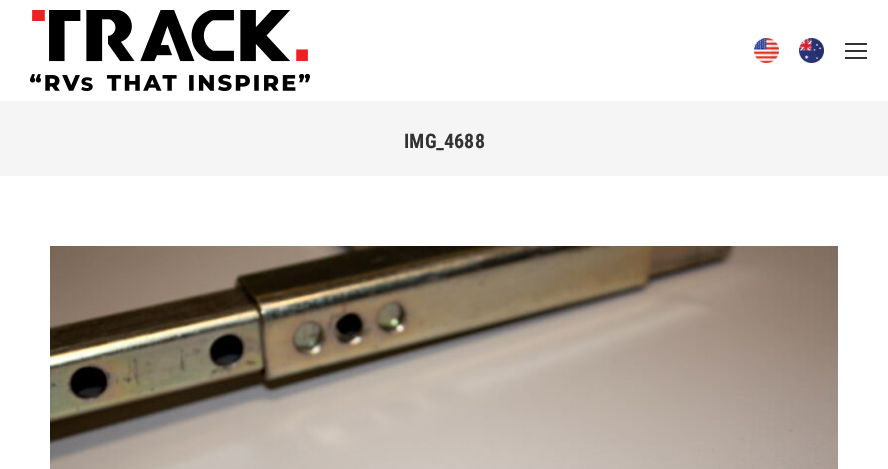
%!PS-Adobe-3.0
%%BoundingBox: 0 0 888 469
%%LanguageLevel: 3
%%Pages: 1
%%EndComments
%%BeginProlog
/setink { 3 { 255 div 3 1 roll } repeat setrgbcolor } def
/usefont { [ exch dup neg 0 0 3 -1 roll 0 0 ] selectfont } def
/drawtext { setink usefont moveto show } def
/fillbox { setink rectfill } def
/drawimage { 5 dict begin { /h /w /y /x /name } { exch def } forall
  gsave x y translate w h scale
  w h 8 [w 0 0 h 0 0] name (r) file false 3 colorimage grestore end } def
%%EndProlog
%%BeginSetup
<< /PageSize [888 469] >> setpagedevice
%%EndSetup
%%Page: 1 1
0 469 translate 1 -1 scale
4 setmiterlimit
0 0 888 469 255 255 255 fillbox
(assets/img1.rgb) 30 10 280 81 drawimage
(assets/img2.rgb) 754 38 25 25 drawimage
(assets/img3.rgb) 799 38 25 25 drawimage
845 43 22 2 51 51 51 fillbox
845 50 22 2 51 51 51 fillbox
845 57 22 2 51 51 51 fillbox
0 101 888 75 245 245 245 fillbox
(IMG_4688) 404 148 /RobotoCondensed-Bold 20 51 51 51 drawtext
(assets/img4.rgb) 50 246 788 223 drawimage
showpage
%%EOF
